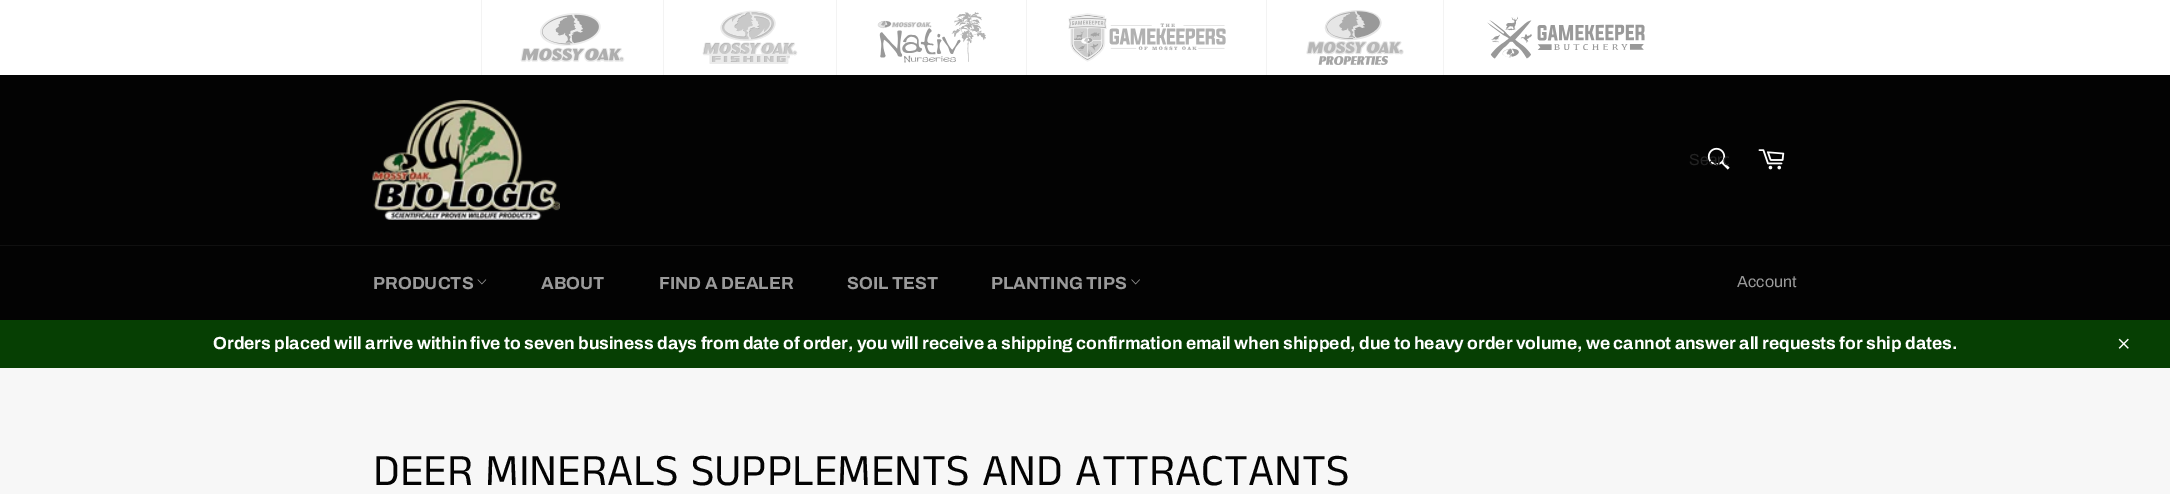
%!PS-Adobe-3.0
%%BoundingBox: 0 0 2170 494
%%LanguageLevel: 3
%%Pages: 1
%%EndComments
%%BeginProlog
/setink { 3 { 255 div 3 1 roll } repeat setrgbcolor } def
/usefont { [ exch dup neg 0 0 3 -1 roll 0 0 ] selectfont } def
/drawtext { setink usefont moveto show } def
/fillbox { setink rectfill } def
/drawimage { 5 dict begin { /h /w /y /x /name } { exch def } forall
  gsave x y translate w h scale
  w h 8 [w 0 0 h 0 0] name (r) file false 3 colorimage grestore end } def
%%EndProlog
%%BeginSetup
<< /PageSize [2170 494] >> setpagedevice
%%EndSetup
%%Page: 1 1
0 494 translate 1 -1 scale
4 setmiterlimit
0 0 2170 494 247 247 247 fillbox
0 0 2170 75 255 255 255 fillbox
481 0 1 75 243 243 243 fillbox
(assets/img1.rgb) 520 13 105 49 drawimage
663 0 1 75 243 243 243 fillbox
(assets/img2.rgb) 702 10 96 54 drawimage
836 0 1 75 243 243 243 fillbox
(assets/img3.rgb) 877 12 109 51 drawimage
1026 0 1 75 243 243 243 fillbox
(assets/img4.rgb) 1068 13 158 49 drawimage
1266 0 1 75 243 243 243 fillbox
(assets/img5.rgb) 1306 10 98 55 drawimage
1443 0 1 75 243 243 243 fillbox
(assets/img6.rgb) 1487 16 158 43 drawimage
0 75 2170 170 3 3 3 fillbox
(assets/img7.rgb) 372 100 188 120 drawimage
(assets/img8.rgb) 1707 147 23 23 drawimage
gsave
1689 151 40 18 rectclip
(Searc) 1689 165 /Archivo-Regular 16 35 35 35 drawtext
grestore
(assets/img9.rgb) 1758 149 27 21 drawimage
0 246 2170 74 3 3 3 fillbox
0 245 2170 1 16 16 16 fillbox
(PRODUCTS) 373 289 /Archivo-Bold 17.5 154 154 154 drawtext
(assets/img10.rgb) 477 279 10 6 drawimage
(ABOUT) 541 289 /Archivo-Bold 17.5 154 154 154 drawtext
(FIND A DEALER) 659 289 /Archivo-Bold 17.5 154 154 154 drawtext
(SOIL TEST) 847 289 /Archivo-Bold 17.5 154 154 154 drawtext
(PLANTING TIPS) 991 289 /Archivo-Bold 17.5 154 154 154 drawtext
(assets/img11.rgb) 1131 279 9 6 drawimage
(Account) 1737 287 /Archivo-Regular 16 154 154 154 drawtext
0 320 2170 48 6 63 3 fillbox
(Orders placed will arrive within five to seven business days from date of order, you will receive a shipping confirmation email when shipped, due to heavy order volume, we cannot answer all requests for ship dates.) 213 349 /Archivo-Bold 17.5 255 255 255 drawtext
(assets/img12.rgb) 2118 338 11 11 drawimage
(DEER MINERALS SUPPLEMENTS AND ATTRACTANTS) 373 485 /AnekTamil-Regular 45 3 3 3 drawtext
showpage
%%EOF
